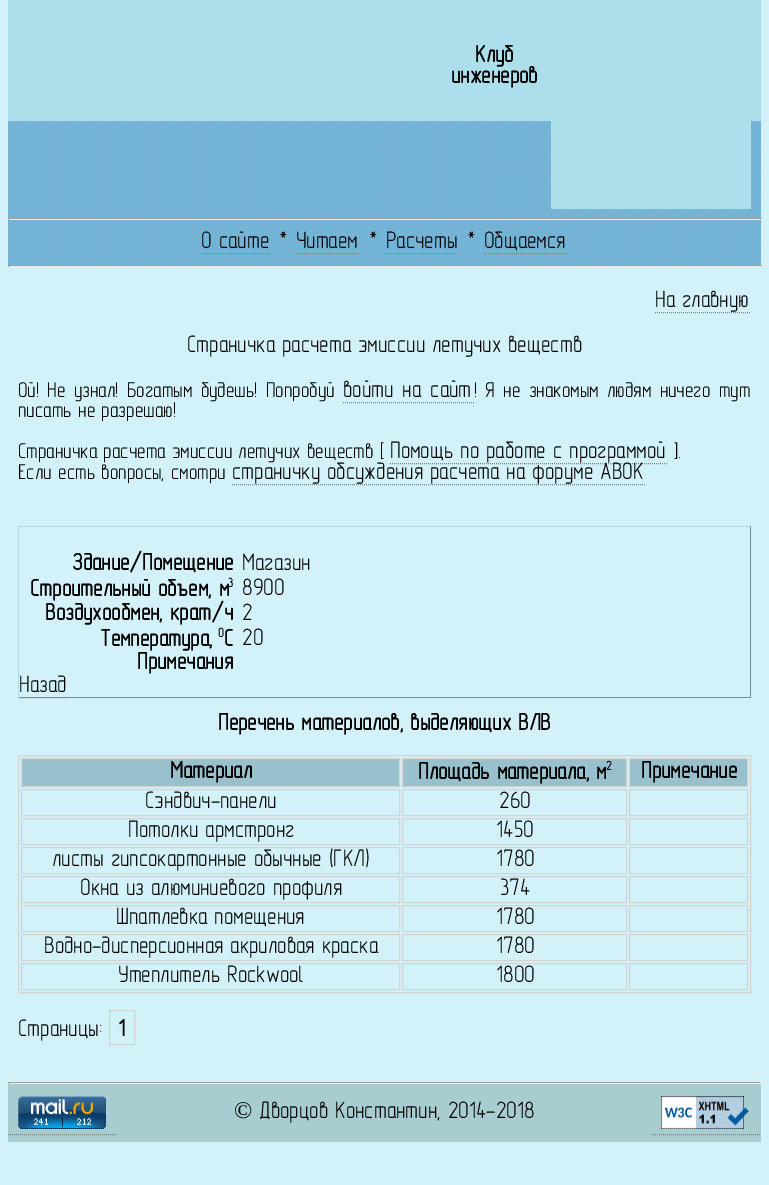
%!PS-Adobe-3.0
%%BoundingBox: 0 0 769 1185
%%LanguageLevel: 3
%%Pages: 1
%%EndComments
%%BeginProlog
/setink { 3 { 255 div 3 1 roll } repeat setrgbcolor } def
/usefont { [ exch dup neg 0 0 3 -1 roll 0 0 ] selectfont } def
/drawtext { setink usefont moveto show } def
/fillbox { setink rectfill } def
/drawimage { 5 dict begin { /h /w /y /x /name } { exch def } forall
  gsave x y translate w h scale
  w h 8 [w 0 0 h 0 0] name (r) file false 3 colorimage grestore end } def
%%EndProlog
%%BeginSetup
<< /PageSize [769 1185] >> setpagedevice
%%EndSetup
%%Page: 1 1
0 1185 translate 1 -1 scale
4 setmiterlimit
0 0 769 1185 210 241 249 fillbox
8 0 753 121 172 222 236 fillbox
(Клуб) 475 62 /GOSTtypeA-Bold 24 0 0 0 drawtext
(инженеров) 451 83 /GOSTtypeA-Bold 24 0 0 0 drawtext
(assets/img1.rgb) 8 121 753 144 drawimage
551 121 200 88 172 222 236 fillbox
8 218 755 1 159 159 159 fillbox
762 218 1 2 238 238 238 fillbox
8 219 755 1 238 238 238 fillbox
8 218 1 2 159 159 159 fillbox
(О сайте) 201 248 /GOSTtypeA-Regular 24 0 0 0 drawtext
128 128 128 setink
[1 1] 0 setdash
201 253.5 moveto 271 253.5 lineto stroke
(* Читаем) 278 248 /GOSTtypeA-Regular 24 0 0 0 drawtext
(* Расчеты) 368 248 /GOSTtypeA-Regular 24 0 0 0 drawtext
(* Общаемся) 466 248 /GOSTtypeA-Regular 24 0 0 0 drawtext
128 128 128 setink
296 253.5 moveto 360 253.5 lineto stroke
385 253.5 moveto 459 253.5 lineto stroke
484 253.5 moveto 568 253.5 lineto stroke
8 265 755 1 159 159 159 fillbox
762 265 1 2 238 238 238 fillbox
8 266 755 1 238 238 238 fillbox
8 265 1 2 159 159 159 fillbox
(На главную) 655 307 /GOSTtypeA-Regular 24 0 0 0 drawtext
128 128 128 setink
655 312.5 moveto 751 312.5 lineto stroke
(Страничка расчета эмиссии летучих веществ) 187 352 /GOSTtypeA-Regular 24 0 0 0 drawtext
/GOSTtypeA-Regular 21.6 usefont
18 397 moveto 2 0 32 (Ой! Не узнал! Богатым будешь! Попробуй) widthshow
/GOSTtypeA-Regular 24 usefont
343 397 moveto 2 0 32 (войти на сайт) widthshow
128 128 128 setink
343 402.5 moveto 474 402.5 lineto stroke
/GOSTtypeA-Regular 21.6 usefont
0 0 0 setink
474 397 moveto 2 0 32 (! Я не знакомым людям ничего тут) widthshow
(писать не разрешаю!) 18 417 /GOSTtypeA-Regular 21.6 0 0 0 drawtext
(Страничка расчета эмиссии летучих веществ [) 18 458 /GOSTtypeA-Regular 21.6 0 0 0 drawtext
(Помощь по работе с программой) 390 458 /GOSTtypeA-Regular 24 0 0 0 drawtext
128 128 128 setink
390 463.5 moveto 668 463.5 lineto stroke
(].) 674 458 /GOSTtypeA-Regular 21.6 0 0 0 drawtext
(Если есть вопросы, смотри) 18 479 /GOSTtypeA-Regular 21.6 0 0 0 drawtext
(страничку обсуждения расчета на форуме АВОК) 232 479 /GOSTtypeA-Regular 24 0 0 0 drawtext
128 128 128 setink
232 484.5 moveto 646 484.5 lineto stroke
18 526 733 1 173 216 230 fillbox
750 526 1 172 115 144 153 fillbox
18 697 733 1 115 144 153 fillbox
18 526 1 172 173 216 230 fillbox
(Здание/Помещение) 72 570 /GOSTtypeA-Bold 24 0 0 0 drawtext
(Магазин) 242 570 /GOSTtypeA-Regular 24 0 0 0 drawtext
(Строительный объем, м) 30 596 /GOSTtypeA-Bold 24 0 0 0 drawtext
(3) 228 587 /GOSTtypeA-Bold 13 0 0 0 drawtext
(8900) 242 595 /GOSTtypeA-Regular 24 0 0 0 drawtext
(Воздухообмен, крат/ч) 45 620 /GOSTtypeA-Bold 24 0 0 0 drawtext
(2) 242 620 /GOSTtypeA-Regular 24 0 0 0 drawtext
(Температура,) 100 646 /GOSTtypeA-Bold 24 0 0 0 drawtext
(0) 218 637 /GOSTtypeA-Bold 13 0 0 0 drawtext
(C) 224 646 /GOSTtypeA-Bold 24 0 0 0 drawtext
(20) 242 645 /GOSTtypeA-Regular 24 0 0 0 drawtext
(Примечания) 137 669 /GOSTtypeA-Bold 24 0 0 0 drawtext
(Назад) 19 692 /GOSTtypeA-Regular 24 0 0 0 drawtext
128 128 128 setink
19 697.5 moveto 69 697.5 lineto stroke
(Перечень материалов, выделяющих ВЛВ) 218 730 /GOSTtypeA-Bold 24 0 0 0 drawtext
211 211 211 setink
[] 0 setdash
18.5 755.5 732 237 rectstroke
152 192 205 setink
21.5 758.5 moveto 399.5 758.5 lineto 399.5 786.5 lineto 21.5 786.5 lineto closepath gsave fill grestore
211 211 211 setink
stroke
(Материал) 170 778 /GOSTtypeA-Bold 24 0 0 0 drawtext
152 192 205 setink
402.5 758.5 moveto 626.5 758.5 lineto 626.5 786.5 lineto 402.5 786.5 lineto closepath gsave fill grestore
211 211 211 setink
stroke
(Площадь материала, м) 418 779 /GOSTtypeA-Bold 24 0 0 0 drawtext
(2) 606 770 /GOSTtypeA-Bold 13 0 0 0 drawtext
152 192 205 setink
629.5 758.5 moveto 747.5 758.5 lineto 747.5 786.5 lineto 629.5 786.5 lineto closepath gsave fill grestore
211 211 211 setink
stroke
(Примечание) 641 778 /GOSTtypeA-Bold 24 0 0 0 drawtext
211 211 211 setink
21.5 789.5 378 26 rectstroke
(Сэндвич-панели) 145 808 /GOSTtypeA-Regular 24 0 0 0 drawtext
211 211 211 setink
402.5 789.5 224 26 rectstroke
(260) 499 808 /GOSTtypeA-Regular 24 0 0 0 drawtext
211 211 211 setink
629.5 789.5 118 26 rectstroke
21.5 818.5 378 26 rectstroke
(Потолки армстронг) 128 837 /GOSTtypeA-Regular 24 0 0 0 drawtext
211 211 211 setink
402.5 818.5 224 26 rectstroke
(1450) 496 837 /GOSTtypeA-Regular 24 0 0 0 drawtext
211 211 211 setink
629.5 818.5 118 26 rectstroke
21.5 847.5 378 26 rectstroke
(листы гипсокартонные обычные \(ГКЛ\)) 52 866 /GOSTtypeA-Regular 24 0 0 0 drawtext
211 211 211 setink
402.5 847.5 224 26 rectstroke
(1780) 496 866 /GOSTtypeA-Regular 24 0 0 0 drawtext
211 211 211 setink
629.5 847.5 118 26 rectstroke
21.5 876.5 378 26 rectstroke
(Окна из алюминиевого профиля) 80 895 /GOSTtypeA-Regular 24 0 0 0 drawtext
211 211 211 setink
402.5 876.5 224 26 rectstroke
(374) 500 895 /GOSTtypeA-Regular 24 0 0 0 drawtext
211 211 211 setink
629.5 876.5 118 26 rectstroke
21.5 905.5 378 26 rectstroke
(Шпатлевка помещения) 116 924 /GOSTtypeA-Regular 24 0 0 0 drawtext
211 211 211 setink
402.5 905.5 224 26 rectstroke
(1780) 496 924 /GOSTtypeA-Regular 24 0 0 0 drawtext
211 211 211 setink
629.5 905.5 118 26 rectstroke
21.5 934.5 378 26 rectstroke
(Водно-дисперсионная акриловая краска) 44 953 /GOSTtypeA-Regular 24 0 0 0 drawtext
211 211 211 setink
402.5 934.5 224 26 rectstroke
(1780) 496 953 /GOSTtypeA-Regular 24 0 0 0 drawtext
211 211 211 setink
629.5 934.5 118 26 rectstroke
21.5 963.5 378 26 rectstroke
(Утеплитель Rockwool) 118 982 /GOSTtypeA-Regular 24 0 0 0 drawtext
211 211 211 setink
402.5 963.5 224 26 rectstroke
(1800) 496 982 /GOSTtypeA-Regular 24 0 0 0 drawtext
211 211 211 setink
629.5 963.5 118 26 rectstroke
(Страницы:) 18 1036 /GOSTtypeA-Regular 24 0 0 0 drawtext
211 211 211 setink
109.5 1010.5 25 34 rectstroke
(1) 118 1036 /GOSTtypeA-Bold 24 0 0 0 drawtext
8 1084 753 58 168 205 209 fillbox
8 1082 753 1 159 159 159 fillbox
760 1082 1 2 238 238 238 fillbox
8 1083 753 1 238 238 238 fillbox
8 1082 1 2 159 159 159 fillbox
(assets/img2.rgb) 18 1096 88 33 drawimage
128 128 128 setink
[1 1] 0 setdash
8 1134.5 moveto 118 1134.5 lineto stroke
(©) 234 1118 /LiberationSerif-Regular 24 0 0 0 drawtext
(Дворцов Константин, 2014-2018) 259 1118 /GOSTtypeA-Regular 24 0 0 0 drawtext
(assets/img3.rgb) 661 1096 88 33 drawimage
128 128 128 setink
651 1134.5 moveto 761 1134.5 lineto stroke
showpage
%%EOF
